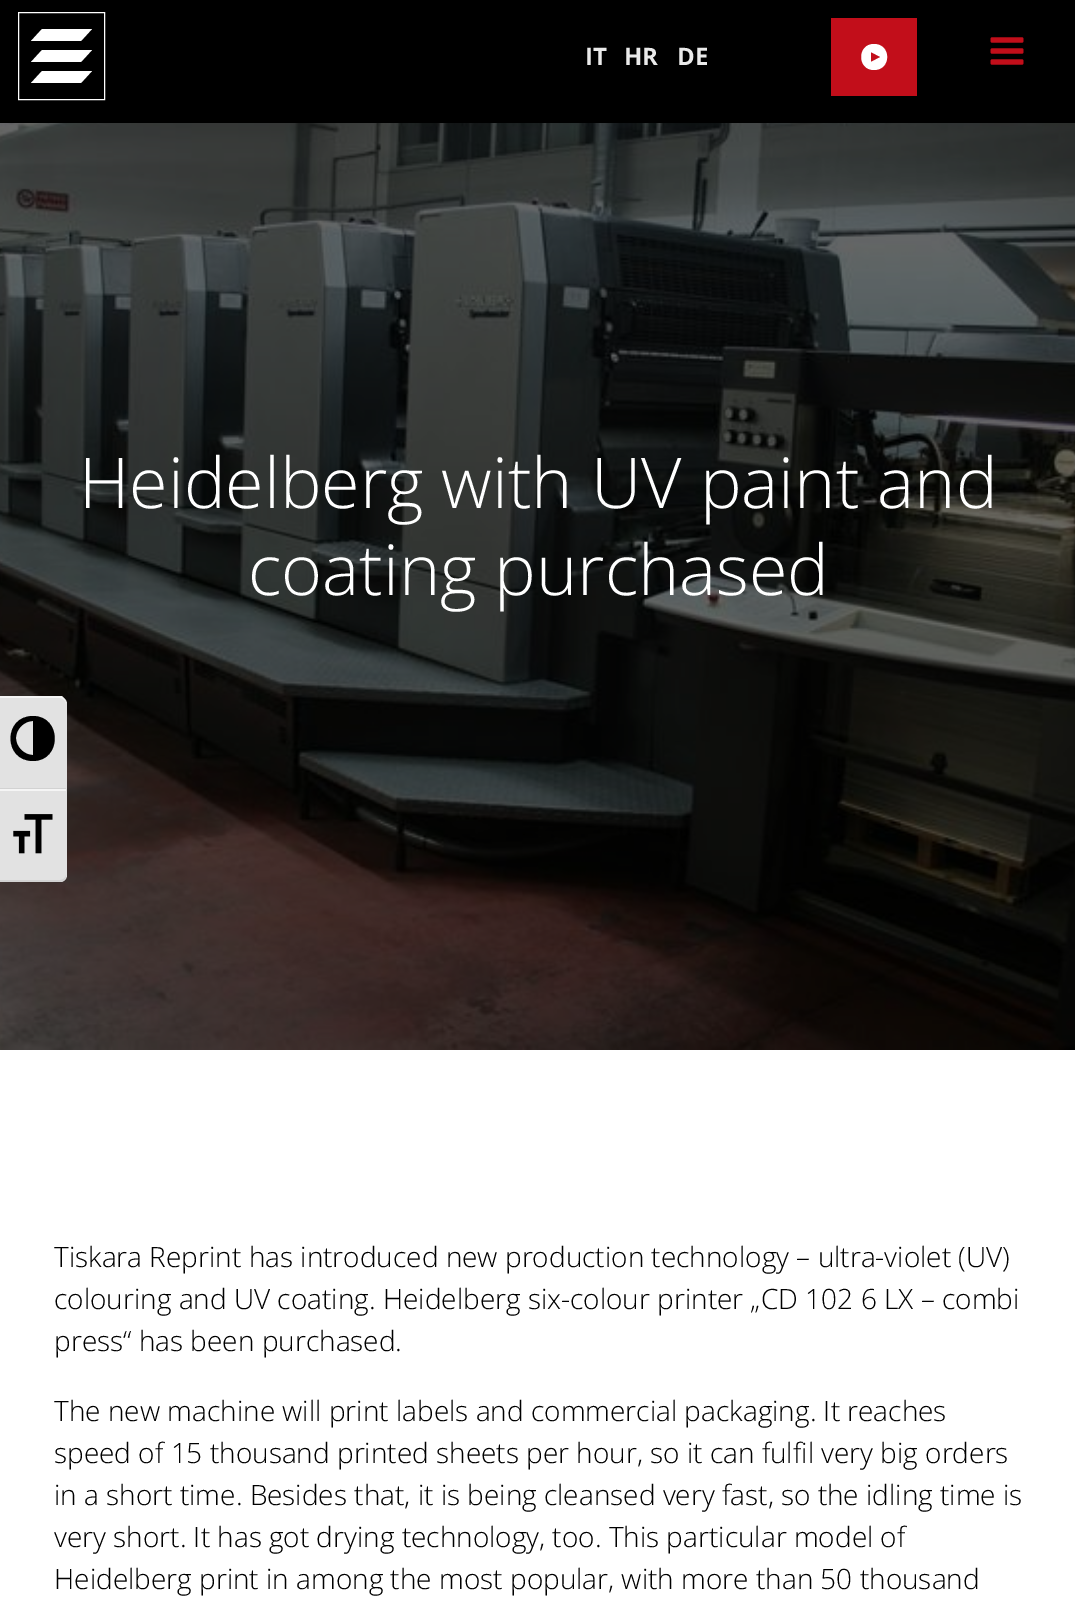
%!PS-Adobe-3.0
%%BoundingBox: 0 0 1075 1618
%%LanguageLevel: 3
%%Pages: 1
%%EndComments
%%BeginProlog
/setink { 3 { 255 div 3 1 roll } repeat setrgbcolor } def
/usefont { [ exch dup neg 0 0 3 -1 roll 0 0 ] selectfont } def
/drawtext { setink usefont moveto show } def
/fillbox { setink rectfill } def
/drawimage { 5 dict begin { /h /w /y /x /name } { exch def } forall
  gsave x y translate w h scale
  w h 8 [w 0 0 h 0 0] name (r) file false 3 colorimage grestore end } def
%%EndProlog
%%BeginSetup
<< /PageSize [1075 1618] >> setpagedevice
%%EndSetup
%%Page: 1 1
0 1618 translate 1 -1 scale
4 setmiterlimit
0 0 1075 1618 255 255 255 fillbox
0 0 1075 123 0 0 0 fillbox
255 255 255 setink
18.5 12.5 86 87 rectstroke
92 29 moveto 42 29 lineto 31 41 lineto 81 41 lineto closepath 92 50 moveto 42 50 lineto 31 62 lineto 81 62 lineto closepath 42 71 moveto 31 83 lineto 81 83 lineto 92 71 lineto closepath fill
(IT) 585 65 /OpenSans-Bold 24 234 234 234 drawtext
(HR) 624 65 /OpenSans-Bold 24 234 234 234 drawtext
(DE) 677 65 /OpenSans-Bold 24 234 234 234 drawtext
831 18 86 78 194 14 26 fillbox
255 255 255 setink
874 44 moveto 857 44 857 70 874 70 curveto 891.5 70 891.5 44 874 44 curveto closepath 871 62 moveto 871 52 lineto 880.5 57 lineto closepath fill
(assets/img1.rgb) 990 37 34 28 drawimage
(assets/img3.rgb) 0 123 1075 927 drawimage
226 226 226 setink
0 697 moveto 60 697 lineto 64 697 67 700 67 704 curveto 67 789 lineto 0 789 lineto closepath fill
245 245 245 setink
0 698 moveto 60 698 lineto 63 698 66 701 66 704 curveto 66 701 64 698 62 696 curveto 0 696 lineto closepath fill
0 788 66 1 210 210 210 fillbox
0 0 0 setink
33 716 moveto 3 716 3 761 33 761 curveto 62 761 62 716 33 716 curveto closepath 16 738 moveto 16 729 24 721 33 721 curveto 33 755 lineto 24 755 16 747 16 738 curveto closepath fill
226 226 226 setink
0 789 moveto 67 789 lineto 67 875 lineto 67 879 64 882 60 882 curveto 0 882 lineto closepath fill
0 789 66 2 245 245 245 fillbox
210 210 210 setink
0 882 moveto 60 882 lineto 63 882 66 879 66 875 curveto 66 878 63 880 60 880 curveto 0 880 lineto closepath fill
(assets/img2.rgb) 13 814 40 40 drawimage
(Heidelberg with UV paint and) 79 508 /OpenSans-Light 70 255 255 255 drawtext
(coating purchased) 248 595 /OpenSans-Light 70 255 255 255 drawtext
(Tiskara Reprint has introduced new production technology – ultra-violet \(UV\)) 54 1267 /OpenSans-Light 28 0 0 0 drawtext
(colouring and UV coating. Heidelberg six-colour printer „CD 102 6 LX – combi) 54 1309 /OpenSans-Light 28 0 0 0 drawtext
(press“ has been purchased.) 54 1351 /OpenSans-Light 28 0 0 0 drawtext
(The new machine will print labels and commercial packaging. It reaches) 54 1421 /OpenSans-Light 28 0 0 0 drawtext
(speed of 15 thousand printed sheets per hour, so it can fulfil very big orders) 54 1463 /OpenSans-Light 28 0 0 0 drawtext
(in a short time. Besides that, it is being cleansed very fast, so the idling time is) 54 1505 /OpenSans-Light 28 0 0 0 drawtext
(very short. It has got drying technology, too. This particular model of) 54 1547 /OpenSans-Light 28 0 0 0 drawtext
(Heidelberg print in among the most popular, with more than 50 thousand) 54 1589 /OpenSans-Light 28 0 0 0 drawtext
showpage
%%EOF
